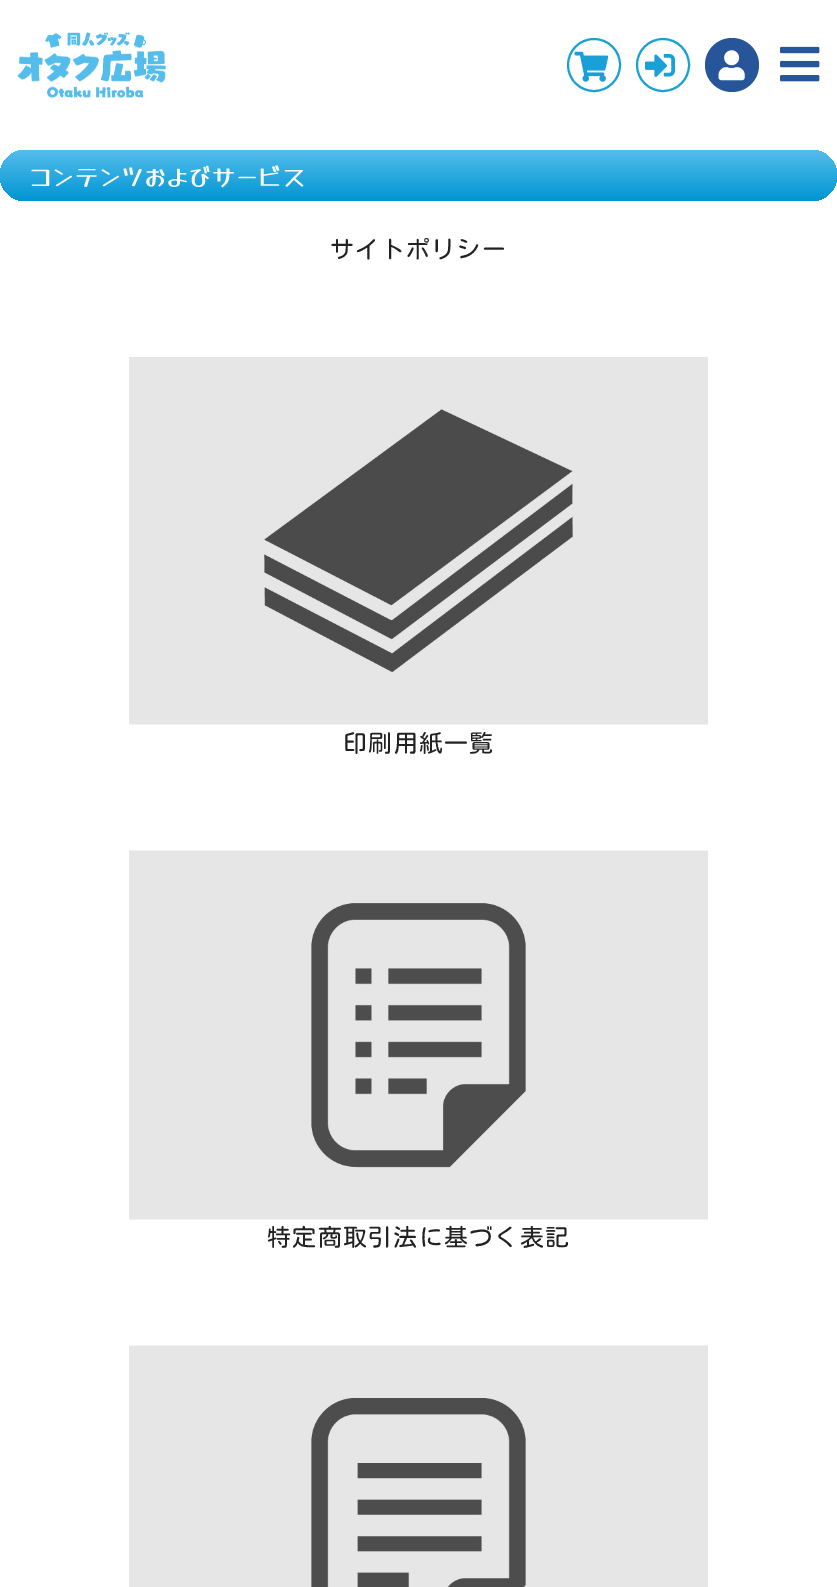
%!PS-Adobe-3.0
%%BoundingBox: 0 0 837 1587
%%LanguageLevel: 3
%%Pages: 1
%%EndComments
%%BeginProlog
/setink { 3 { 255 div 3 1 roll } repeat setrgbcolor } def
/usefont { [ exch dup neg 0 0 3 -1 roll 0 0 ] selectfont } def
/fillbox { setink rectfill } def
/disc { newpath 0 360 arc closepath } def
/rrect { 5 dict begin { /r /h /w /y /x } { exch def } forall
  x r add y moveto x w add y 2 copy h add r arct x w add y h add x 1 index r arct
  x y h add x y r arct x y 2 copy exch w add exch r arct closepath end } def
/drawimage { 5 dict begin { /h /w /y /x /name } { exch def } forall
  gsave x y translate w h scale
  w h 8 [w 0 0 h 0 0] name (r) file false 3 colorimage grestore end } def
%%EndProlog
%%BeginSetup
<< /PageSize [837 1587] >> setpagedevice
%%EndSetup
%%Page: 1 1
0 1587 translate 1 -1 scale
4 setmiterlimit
0 0 837 1587 255 255 255 fillbox
(assets/img1.rgb) 17 32 149 66 drawimage
25 160 215 setink
2 setlinewidth
594 65 26 disc stroke
(assets/img2.rgb) 574 51 35 31 drawimage
663 65 26 disc stroke
(assets/img3.rgb) 645 54 30 23 drawimage
39 85 154 setink
732 65 27 disc fill
(assets/img4.rgb) 718 50 27 31 drawimage
(assets/img5.rgb) 780 46 40 36 drawimage
gsave 0 150 837 51 25.5 rrect clip newpath
<< /ShadingType 2 /ColorSpace /DeviceRGB /Coords [419 150 419 201] /Extend [true true] /Function << /FunctionType 2 /Domain [0 1] /C0 [0.329 0.741 0.922] /C1 [0 0.584 0.827] /N 1 >> >> shfill grestore
/YuseiMagic-Regular 24 usefont
255 255 255 setink
30 186 moveto 1.25 0 (コンテンツおよびサービス) ashow
/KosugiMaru-Regular 24 usefont
34 34 34 setink
330 258 moveto 1.25 0 (サイトポリシー) ashow
(assets/img6.rgb) 129 357 579 368 drawimage
343 752 moveto 1.25 0 (印刷用紙一覧) ashow
(assets/img7.rgb) 129 850 579 370 drawimage
267 1246 moveto 1.25 0 (特定商取引法に基づく表記) ashow
(assets/img8.rgb) 129 1345 579 242 drawimage
showpage
%%EOF
